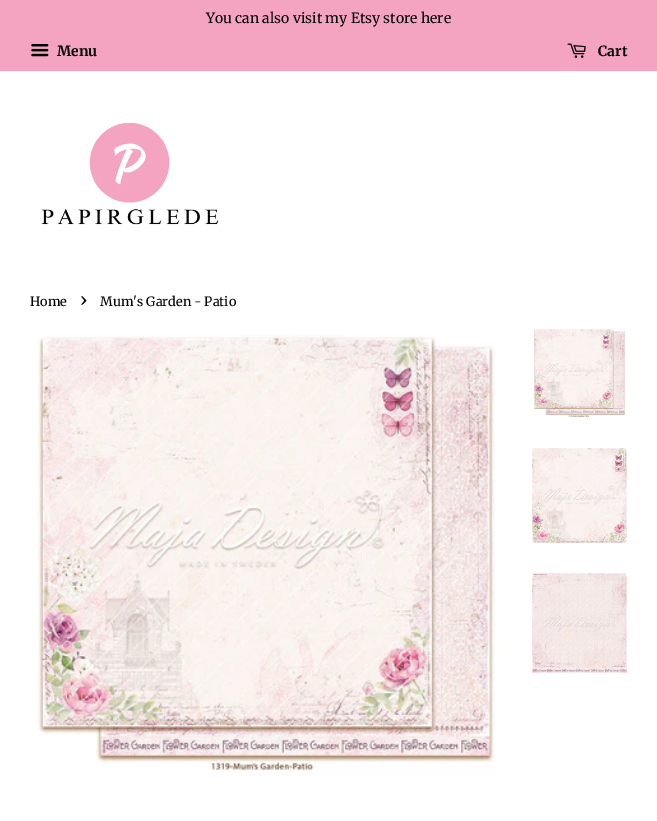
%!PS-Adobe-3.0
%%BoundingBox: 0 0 657 821
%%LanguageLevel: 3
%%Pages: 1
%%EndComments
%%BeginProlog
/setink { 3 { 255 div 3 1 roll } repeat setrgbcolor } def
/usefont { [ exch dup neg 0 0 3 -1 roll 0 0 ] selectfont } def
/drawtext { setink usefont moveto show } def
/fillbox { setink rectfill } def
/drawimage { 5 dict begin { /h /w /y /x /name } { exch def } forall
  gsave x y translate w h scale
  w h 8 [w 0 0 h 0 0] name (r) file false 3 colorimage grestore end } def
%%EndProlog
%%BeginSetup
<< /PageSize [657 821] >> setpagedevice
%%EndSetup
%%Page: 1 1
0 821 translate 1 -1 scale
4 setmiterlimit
0 0 657 821 255 255 255 fillbox
0 0 657 71 244 164 192 fillbox
(You can also visit my Etsy store here) 206 23 /Merriweather-Regular 14 0 0 0 drawtext
(assets/img1.rgb) 31 44 18 13 drawimage
(Menu) 57 56 /Merriweather-Bold 14 0 0 0 drawtext
(assets/img2.rgb) 567 43 19 15 drawimage
(Cart) 598 56 /Merriweather-Bold 14 0 0 0 drawtext
(assets/img3.rgb) 41 122 178 103 drawimage
(Home) 30 306 /Merriweather-Regular 12.75 0 0 0 drawtext
(›) 80 306 /Merriweather-Regular 18 0 0 0 drawtext
(Mum's Garden - Patio) 100 306 /Merriweather-Regular 12.75 0 0 0 drawtext
(assets/img4.rgb) 38 335 457 441 drawimage
(assets/img5.rgb) 534 329 92 88 drawimage
(assets/img6.rgb) 532 448 95 95 drawimage
(assets/img7.rgb) 532 573 95 100 drawimage
showpage
%%EOF
